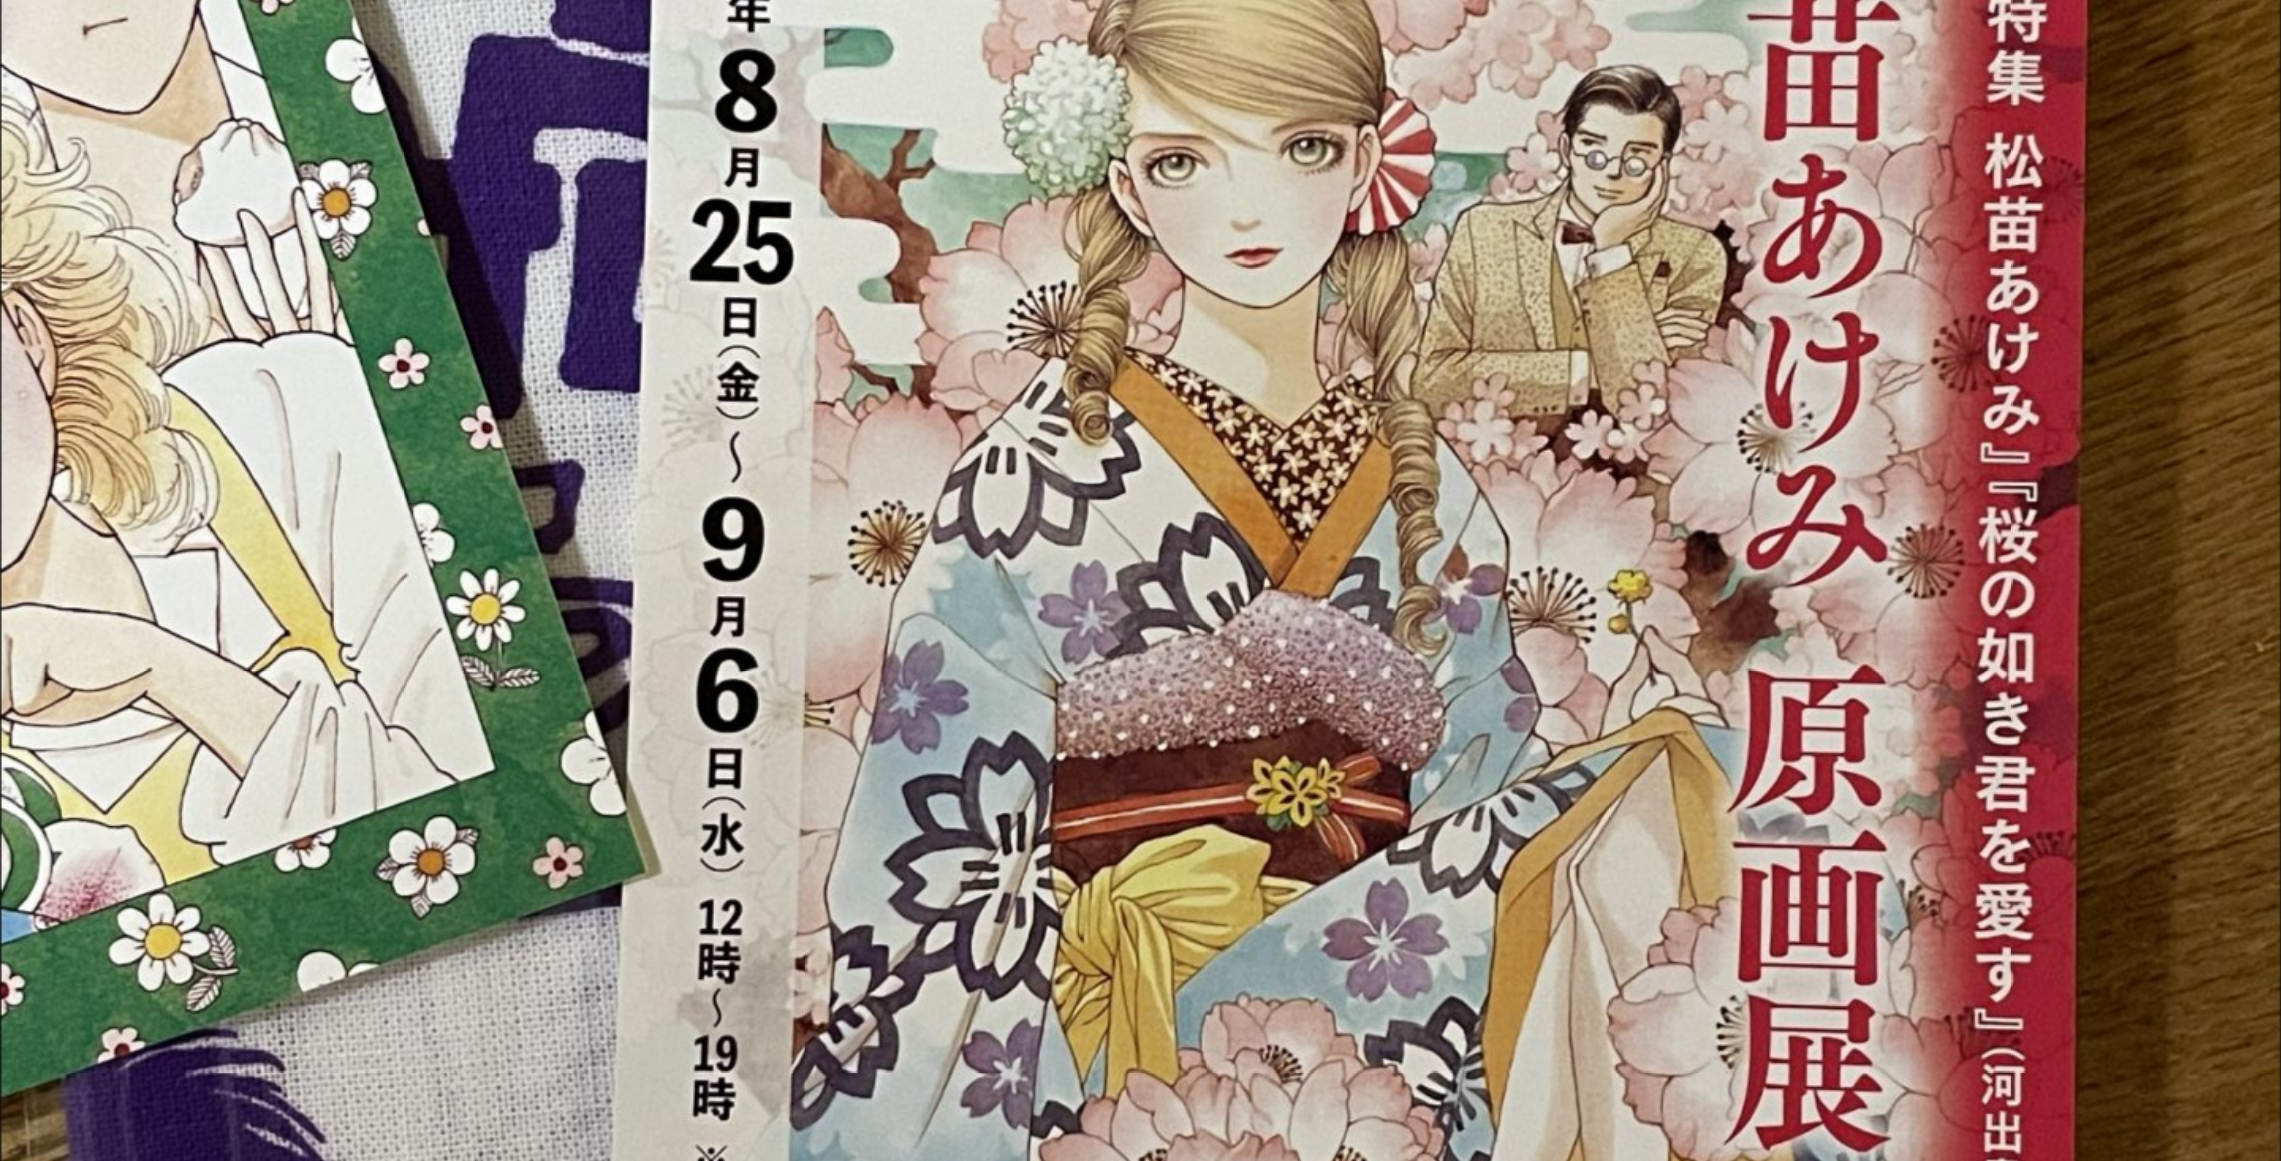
%!PS-Adobe-3.0
%%BoundingBox: 0 0 2281 1161
%%LanguageLevel: 3
%%Pages: 1
%%EndComments
%%BeginProlog
/setink { 3 { 255 div 3 1 roll } repeat setrgbcolor } def
/fillbox { setink rectfill } def
/drawimage { 5 dict begin { /h /w /y /x /name } { exch def } forall
  gsave x y translate w h scale
  w h 8 [w 0 0 h 0 0] name (r) file false 3 colorimage grestore end } def
%%EndProlog
%%BeginSetup
<< /PageSize [2281 1161] >> setpagedevice
%%EndSetup
%%Page: 1 1
0 1161 translate 1 -1 scale
4 setmiterlimit
0 0 2281 1161 17 17 17 fillbox
(assets/img1.rgb) 0 0 2281 1161 drawimage
showpage
%%EOF
